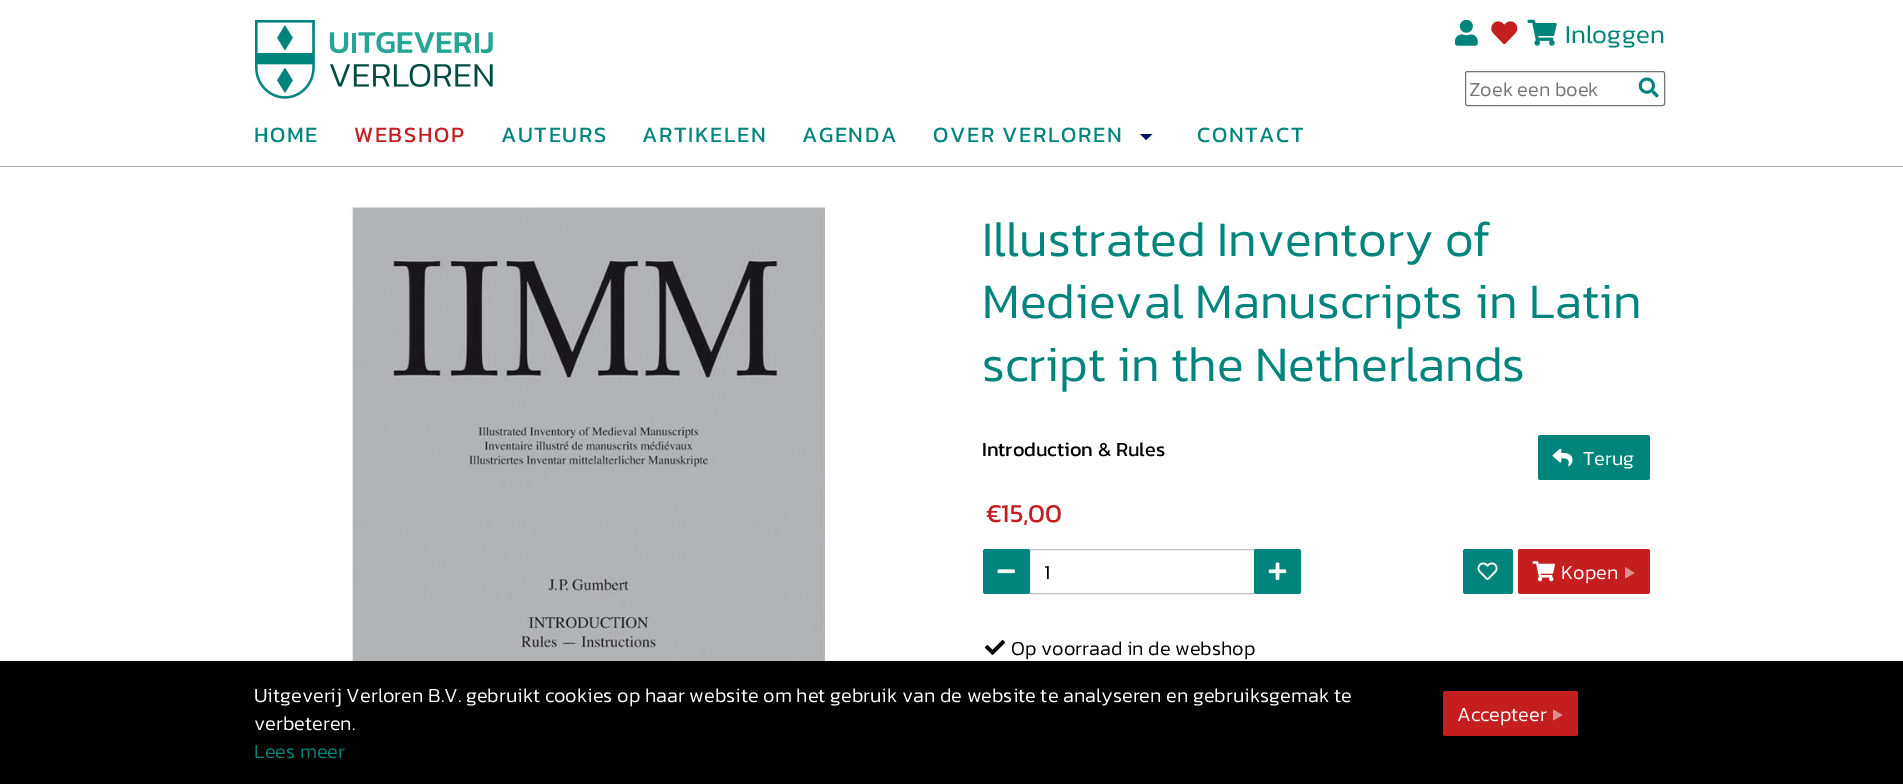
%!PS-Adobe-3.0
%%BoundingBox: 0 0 1903 784
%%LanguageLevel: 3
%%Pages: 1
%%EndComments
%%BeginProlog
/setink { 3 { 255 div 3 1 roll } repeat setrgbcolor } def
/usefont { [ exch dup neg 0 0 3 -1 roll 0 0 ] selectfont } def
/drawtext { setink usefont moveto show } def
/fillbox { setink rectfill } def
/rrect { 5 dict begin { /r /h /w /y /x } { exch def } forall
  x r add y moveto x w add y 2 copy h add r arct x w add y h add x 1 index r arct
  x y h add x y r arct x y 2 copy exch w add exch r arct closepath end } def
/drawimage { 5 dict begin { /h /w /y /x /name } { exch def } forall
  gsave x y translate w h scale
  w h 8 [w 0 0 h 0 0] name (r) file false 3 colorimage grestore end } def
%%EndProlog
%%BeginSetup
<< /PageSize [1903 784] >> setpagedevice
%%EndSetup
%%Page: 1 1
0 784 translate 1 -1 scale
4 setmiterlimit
0 0 1903 784 255 255 255 fillbox
0 166 1903 1 163 173 179 fillbox
(assets/img1.rgb) 255 20 238 79 drawimage
(assets/img2.rgb) 1455 20 23 26 drawimage
(assets/img3.rgb) 1491 21 27 24 drawimage
(assets/img4.rgb) 1527 19 30 27 drawimage
(Inloggen) 1565 43 /Kanit-Light 26 0 132 123 drawtext
118 118 118 setink
1465.5 71.5 199 34 2 rrect stroke
(Zoek een boek) 1469 96 /Kanit-Light 20 117 117 117 drawtext
(assets/img5.rgb) 1638 77 21 21 drawimage
/Kanit-Regular 22 usefont
0 132 123 setink
254 142 moveto 1.6 0 (HOME) ashow
196 30 30 setink
354 142 moveto 1.6 0 (WEBSHOP) ashow
0 132 123 setink
501 142 moveto 1.6 0 (AUTEURS) ashow
642 142 moveto 1.6 0 (ARTIKELEN) ashow
802 142 moveto 1.6 0 (AGENDA) ashow
933 142 moveto 1.6 0 (OVER VERLOREN) ashow
0 21 95 setink
1140 134 moveto 1152.5 134 lineto 1146 140 lineto closepath fill
0 132 123 setink
1197 142 moveto 1.6 0 (CONTACT) ashow
(assets/img6.rgb) 349 207 476 454 drawimage
(Illustrated Inventory of) 982 256 /Kanit-Light 50 0 132 123 drawtext
(Medieval Manuscripts in Latin) 982 318 /Kanit-Light 50 0 132 123 drawtext
(script in the Netherlands) 982 381 /Kanit-Light 50 0 132 123 drawtext
(Introduction & Rules) 982 456 /Kanit-Regular 20 0 0 0 drawtext
0 132 123 setink
1538 435 112 45 2.5 rrect fill
(assets/img7.rgb) 1552 448 21 19 drawimage
(Terug) 1583 465 /Kanit-Light 20 255 255 255 drawtext
(€15,00) 986 522 /Kanit-Regular 26 196 30 30 drawtext
186 195 200 setink
1029.5 549.5 225 44 rectstroke
0 132 123 setink
983 549 47 45 2.5 rrect fill
(assets/img8.rgb) 997 569 18 5 drawimage
(1) 1044 579 /Kanit-Light 20 0 0 0 drawtext
0 132 123 setink
1254 549 47 45 2.5 rrect fill
(assets/img9.rgb) 1268 562 19 18 drawimage
1463 549 50 45 2.5 rrect fill
(assets/img10.rgb) 1477 562 21 18 drawimage
196 30 30 setink
1518 549 132 45 2.5 rrect fill
(assets/img11.rgb) 1532 561 23 21 drawimage
(Kopen) 1561 579 /Kanit-Light 20 255 255 255 drawtext
226 143 143 setink
1625 578.5 moveto 1625 567 lineto 1634.5 573 lineto closepath fill
(assets/img12.rgb) 985 640 20 15 drawimage
(Op voorraad in de webshop) 1011 655 /Kanit-Light 20 0 0 0 drawtext
0 661 1903 123 0 0 0 fillbox
(Uitgeverij Verloren B.V. gebruikt cookies op haar website om het gebruik van de website te analyseren en gebruiksgemak te) 254 702 /Kanit-Light 20 255 255 255 drawtext
(verbeteren.) 254 730 /Kanit-Light 20 255 255 255 drawtext
(Lees meer) 254 758 /Kanit-Light 20 0 132 123 drawtext
196 30 30 setink
1443 691 135 45 2.5 rrect fill
(Accepteer) 1457 721 /Kanit-Light 20 255 255 255 drawtext
226 143 143 setink
1553 709.5 moveto 1562.5 715 lineto 1553 720.5 lineto closepath fill
showpage
%%EOF
